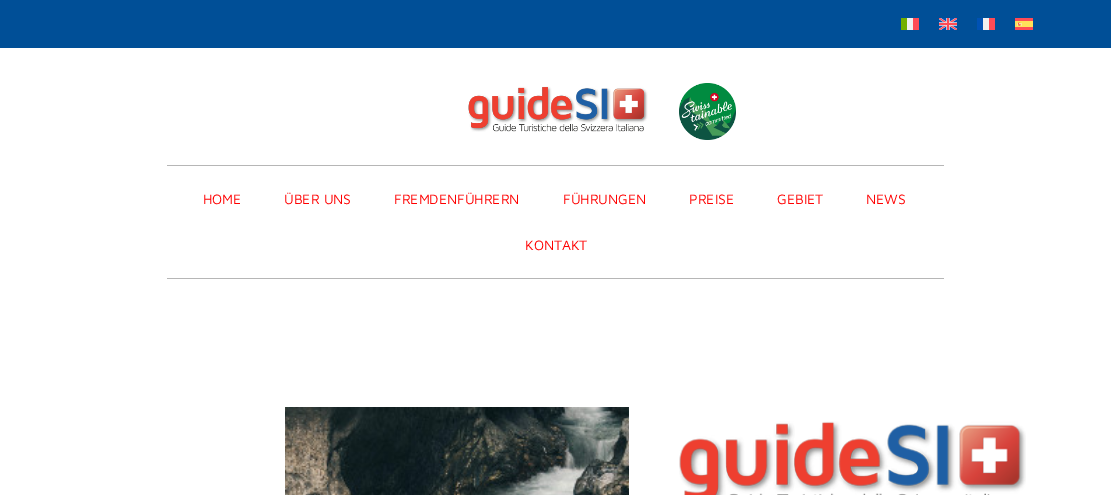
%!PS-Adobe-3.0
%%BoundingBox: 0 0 1111 495
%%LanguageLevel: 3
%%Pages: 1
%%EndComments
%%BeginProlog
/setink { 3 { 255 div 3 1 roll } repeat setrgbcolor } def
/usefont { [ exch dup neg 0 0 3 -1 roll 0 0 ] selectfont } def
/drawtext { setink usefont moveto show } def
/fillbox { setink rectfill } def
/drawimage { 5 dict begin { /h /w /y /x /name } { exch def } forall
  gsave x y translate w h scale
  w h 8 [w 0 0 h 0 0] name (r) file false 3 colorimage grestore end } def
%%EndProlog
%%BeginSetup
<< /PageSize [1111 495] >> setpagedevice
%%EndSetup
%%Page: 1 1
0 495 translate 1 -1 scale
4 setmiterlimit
0 0 1111 495 255 255 255 fillbox
0 0 1111 48 0 79 151 fillbox
901 18 6 12 115 175 0 fillbox
907 18 6 12 240 240 240 fillbox
913 18 6 12 255 75 85 fillbox
(assets/img1.rgb) 939 18 18 12 drawimage
977 18 6 12 0 82 180 fillbox
983 18 6 12 240 240 240 fillbox
989 18 6 12 255 75 85 fillbox
(assets/img2.rgb) 1015 18 18 12 drawimage
(assets/img3.rgb) 468 86 180 46 drawimage
(assets/img4.rgb) 679 83 57 57 drawimage
167 165 777 1 182 182 182 fillbox
167 278 777 1 182 182 182 fillbox
(HOME) 203 204 /MavenPro-Regular 14 255 0 0 drawtext
(ÜBER UNS) 284 204 /MavenPro-Regular 14 255 0 0 drawtext
(FREMDENFÜHRERN) 394 204 /MavenPro-Regular 14 255 0 0 drawtext
(FÜHRUNGEN) 563 204 /MavenPro-Regular 14 255 0 0 drawtext
(PREISE) 689 204 /MavenPro-Regular 14 255 0 0 drawtext
(GEBIET) 777 204 /MavenPro-Regular 14 255 0 0 drawtext
(NEWS) 866 204 /MavenPro-Regular 14 255 0 0 drawtext
(KONTAKT) 525 250 /MavenPro-Regular 14 255 0 0 drawtext
(assets/img5.rgb) 285 407 344 88 drawimage
(assets/img6.rgb) 679 421 347 74 drawimage
showpage
%%EOF
